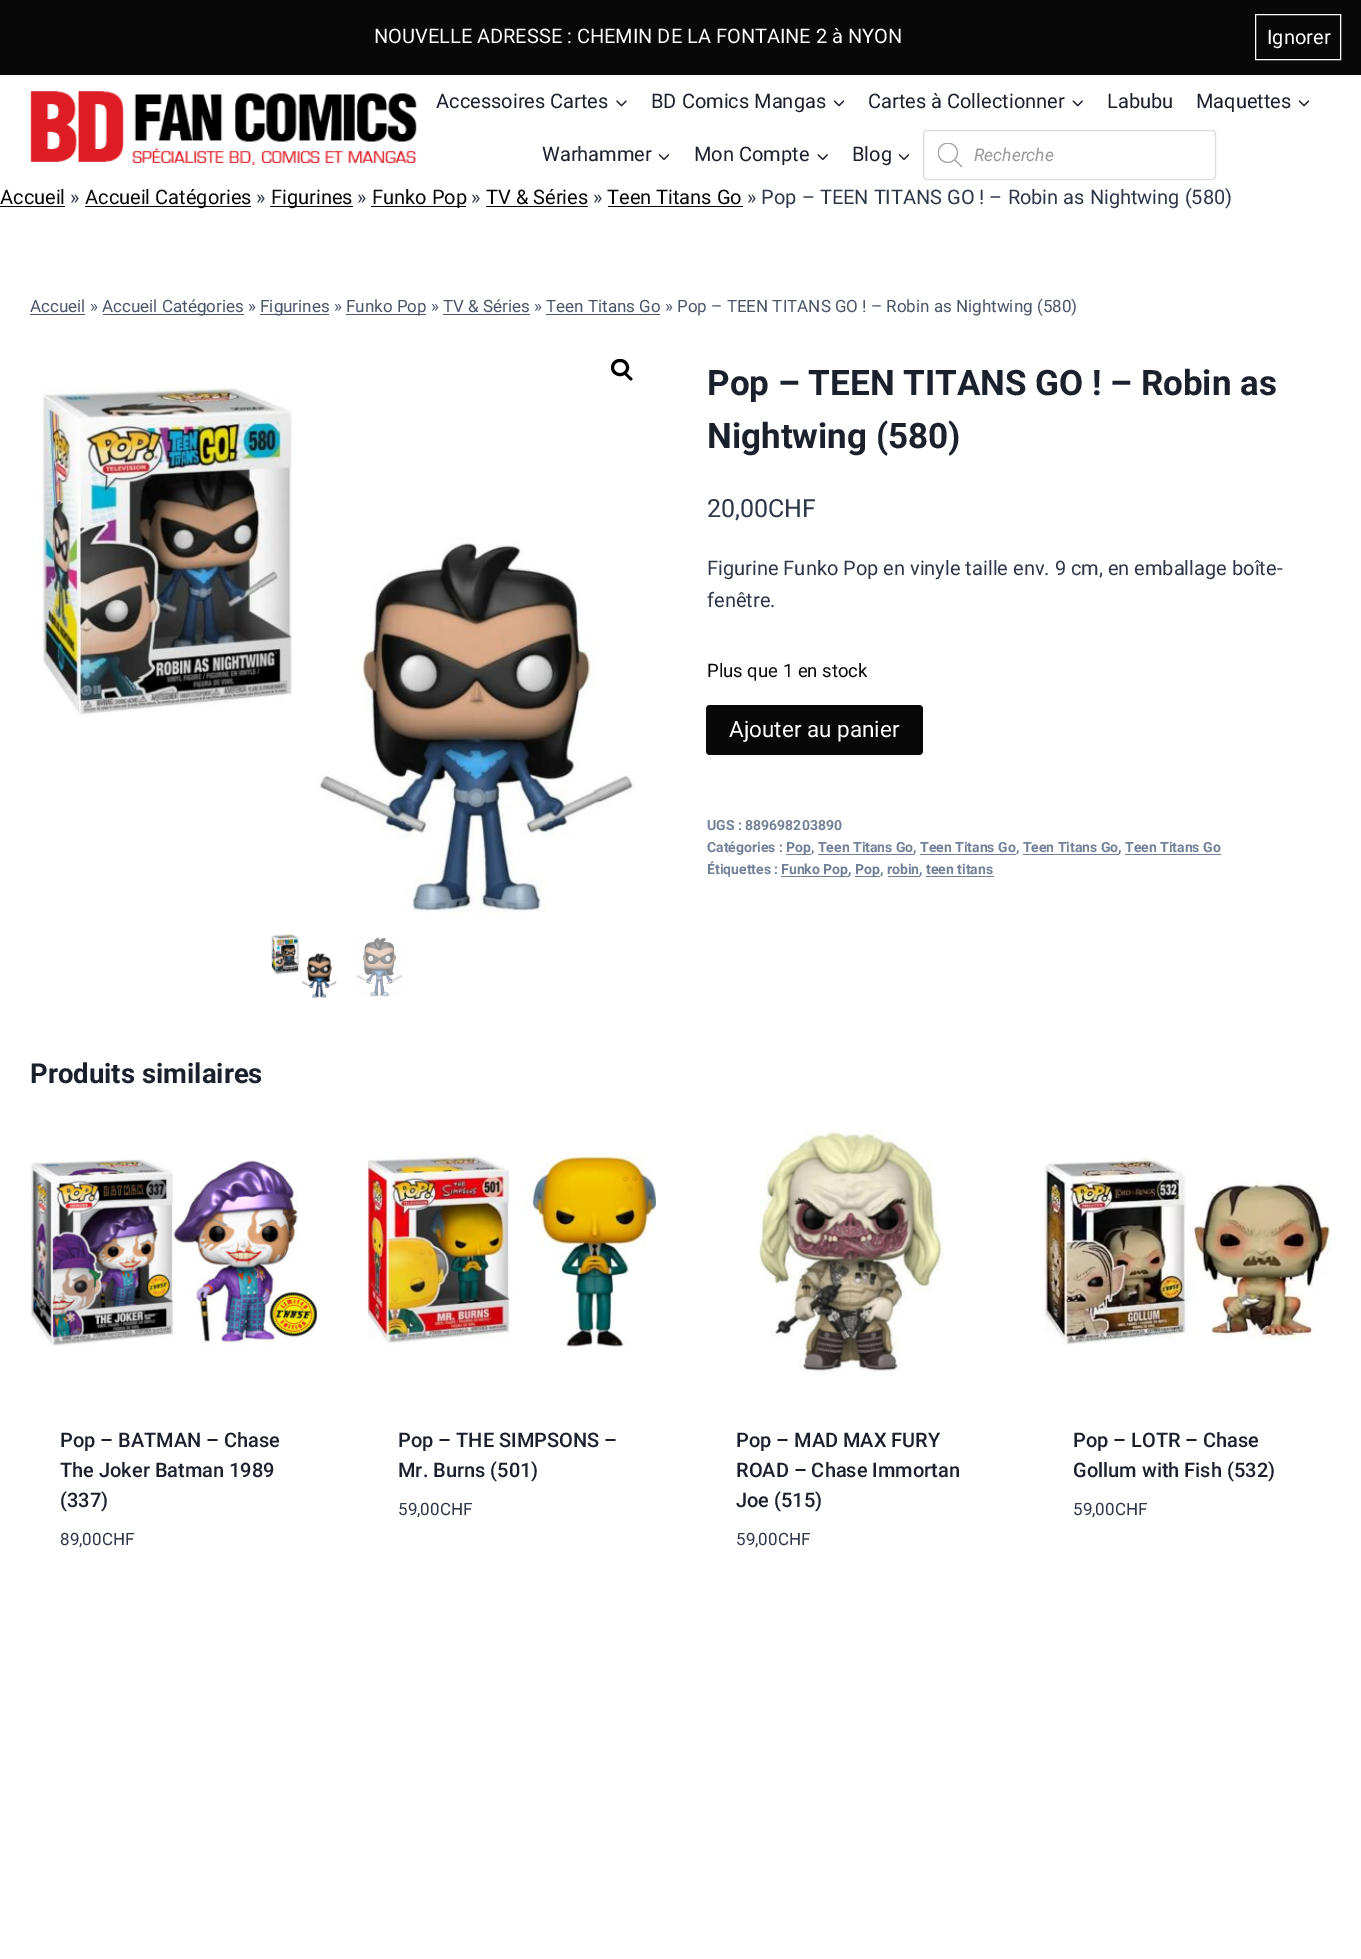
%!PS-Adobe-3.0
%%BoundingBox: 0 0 1361 1959
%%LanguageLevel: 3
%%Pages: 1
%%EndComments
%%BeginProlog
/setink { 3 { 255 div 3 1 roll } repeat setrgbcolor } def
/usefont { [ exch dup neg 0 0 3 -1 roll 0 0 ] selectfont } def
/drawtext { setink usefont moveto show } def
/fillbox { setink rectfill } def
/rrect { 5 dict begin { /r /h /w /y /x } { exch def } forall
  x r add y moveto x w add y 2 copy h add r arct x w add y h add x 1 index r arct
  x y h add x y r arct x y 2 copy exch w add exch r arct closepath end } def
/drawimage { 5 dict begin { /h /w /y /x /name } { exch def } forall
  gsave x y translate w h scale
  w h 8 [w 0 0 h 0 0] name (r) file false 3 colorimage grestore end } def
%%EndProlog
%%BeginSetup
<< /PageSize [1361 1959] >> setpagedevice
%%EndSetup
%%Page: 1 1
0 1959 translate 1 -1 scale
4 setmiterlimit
0 0 1361 1959 255 255 255 fillbox
0 0 1361 75 8 8 8 fillbox
(NOUVELLE ADRESSE : CHEMIN DE LA FONTAINE 2 à NYON) 374 43 /Roboto-Regular 20 255 255 255 drawtext
1255.5 14.5 85 45 rectstroke
(Ignorer) 1267 44 /Roboto-Regular 20 255 255 255 drawtext
(assets/img1.rgb) 30 91 387 74 drawimage
(Accessoires Cartes) 436 108 /Roboto-Regular 20 26 32 44 drawtext
(assets/img2.rgb) 616 100 11 7 drawimage
(BD Comics Mangas) 651 108 /Roboto-Regular 20 26 32 44 drawtext
(assets/img3.rgb) 833 100 12 7 drawimage
(Cartes à Collectionner) 868 108 /Roboto-Regular 20 26 32 44 drawtext
(assets/img4.rgb) 1072 100 11 7 drawimage
(Labubu) 1107 108 /Roboto-Regular 20 26 32 44 drawtext
(Maquettes) 1196 108 /Roboto-Regular 20 26 32 44 drawtext
(assets/img3.rgb) 1298 100 12 7 drawimage
(Warhammer) 542 161 /Roboto-Regular 20 26 32 44 drawtext
(assets/img5.rgb) 658 154 12 7 drawimage
(Mon Compte) 694 161 /Roboto-Regular 20 26 32 44 drawtext
(assets/img6.rgb) 817 154 11 7 drawimage
(Blog) 852 161 /Roboto-Regular 20 26 32 44 drawtext
(assets/img5.rgb) 898 154 12 7 drawimage
221 221 221 setink
923.5 130.5 292 49 3.5 rrect stroke
(assets/img7.rgb) 938 143 25 25 drawimage
(Recherche) 974 161 /Roboto-Italic 17.5 153 153 153 drawtext
(Accueil) 0 204 /Roboto-Regular 20 8 8 8 drawtext
0 206 65 1 8 8 8 fillbox
(») 70 204 /Roboto-Regular 20 45 55 72 drawtext
85 206 166 1 8 8 8 fillbox
(Accueil Catégories) 85 204 /Roboto-Regular 20 8 8 8 drawtext
(») 256 204 /Roboto-Regular 20 45 55 72 drawtext
270 206 83 1 8 8 8 fillbox
(Figurines) 271 204 /Roboto-Regular 20 8 8 8 drawtext
(») 357 204 /Roboto-Regular 20 45 55 72 drawtext
371 206 95 1 8 8 8 fillbox
(Funko Pop) 372 204 /Roboto-Regular 20 8 8 8 drawtext
(») 471 204 /Roboto-Regular 20 45 55 72 drawtext
(TV & Séries) 486 204 /Roboto-Regular 20 8 8 8 drawtext
486 206 102 1 8 8 8 fillbox
(») 593 204 /Roboto-Regular 20 45 55 72 drawtext
(Teen Titans Go) 607 204 /Roboto-Regular 20 8 8 8 drawtext
608 206 135 1 8 8 8 fillbox
(» Pop – TEEN TITANS GO ! – Robin as Nightwing \(580\)) 747 204 /Roboto-Regular 20 45 55 72 drawtext
(Accueil ») 30 312 /Roboto-Regular 17 74 85 104 drawtext
30 314 55 1 74 85 104 fillbox
103 314 141 1 74 85 104 fillbox
(Accueil Catégories ») 102 312 /Roboto-Regular 17 74 85 104 drawtext
260 314 69 1 74 85 104 fillbox
(Figurines ») 260 312 /Roboto-Regular 17 74 85 104 drawtext
346 314 80 1 74 85 104 fillbox
(Funko Pop » TV & Séries » Teen Titans Go » Pop – TEEN TITANS GO ! – Robin as Nightwing \(580\)) 346 312 /Roboto-Regular 17 74 85 104 drawtext
443 314 87 1 74 85 104 fillbox
546 314 114 1 74 85 104 fillbox
0 0 0 setink
3 setlinewidth
612.5 360.5 15 14 7 rrect stroke
625 373 moveto 626 371.5 628.5 375 629 375.5 curveto 630 376.5 633.5 378.5 632 380 curveto 630.5 381.5 628 378 627.5 377.5 curveto 626.5 376.5 623.5 374.5 625 373 curveto closepath fill
(assets/img8.rgb) 30 387 605 528 drawimage
(assets/img9.rgb) 271 934 66 64 drawimage
(assets/img10.rgb) 356 937 47 60 drawimage
(Pop – TEEN TITANS GO ! – Robin as) 707 395 /Roboto-Bold 35 26 32 44 drawtext
(Nightwing \(580\)) 707 448 /Roboto-Bold 35 26 32 44 drawtext
(20,00CHF) 707 517 /Roboto-Regular 25 45 55 72 drawtext
(Figurine Funko Pop en vinyle taille env. 9 cm, en emballage boîte-) 707 575 /Roboto-Regular 20 45 55 72 drawtext
(fenêtre.) 707 607 /Roboto-Regular 20 45 55 72 drawtext
(Plus que 1 en stock) 707 677 /Roboto-Regular 18.5 8 8 8 drawtext
706 705 217 50 4 rrect fill
(Ajouter au panier) 729 737 /Roboto-Regular 22.5 255 255 255 drawtext
(UGS : 889698203890) 707 830 /Roboto-Bold 14 113 128 150 drawtext
(Catégories :) 707 852 /Roboto-Bold 14 113 128 150 drawtext
786 854 25 1 113 128 150 fillbox
(Pop, Teen Titans Go) 786 852 /Roboto-Bold 14 113 128 150 drawtext
818 854 96 1 113 128 150 fillbox
(, Teen Titans Go, Teen Titans Go) 913 852 /Roboto-Bold 14 113 128 150 drawtext
1023 854 96 1 113 128 150 fillbox
(, Teen Titans Go) 1118 852 /Roboto-Bold 14 113 128 150 drawtext
920 854 96 1 113 128 150 fillbox
1125 854 96 1 113 128 150 fillbox
(Étiquettes :) 707 874 /Roboto-Bold 14 113 128 150 drawtext
781 876 68 1 113 128 150 fillbox
(Funko Pop,) 781 874 /Roboto-Bold 14 113 128 150 drawtext
855 876 25 1 113 128 150 fillbox
(Pop, robin) 855 874 /Roboto-Bold 14 113 128 150 drawtext
888 876 32 1 113 128 150 fillbox
(, teen titans) 919 874 /Roboto-Bold 14 113 128 150 drawtext
926 876 68 1 113 128 150 fillbox
(Produits similaires) 30 1083 /Roboto-Bold 27.5 26 32 44 drawtext
(assets/img11.rgb) 30 1159 288 187 drawimage
(Pop – BATMAN – Chase) 60 1447 /Roboto-Medium 20 26 32 44 drawtext
(The Joker Batman 1989) 60 1477 /Roboto-Medium 20 26 32 44 drawtext
(\(337\)) 60 1507 /Roboto-Medium 20 26 32 44 drawtext
(89,00CHF) 60 1545 /Roboto-Regular 17 45 55 72 drawtext
(assets/img12.rgb) 367 1153 289 194 drawimage
(Pop – THE SIMPSONS –) 398 1447 /Roboto-Medium 20 26 32 44 drawtext
(Mr. Burns \(501\)) 398 1477 /Roboto-Medium 20 26 32 44 drawtext
(59,00CHF) 398 1515 /Roboto-Regular 17 45 55 72 drawtext
(assets/img13.rgb) 755 1130 189 246 drawimage
(Pop – MAD MAX FURY) 736 1447 /Roboto-Medium 20 26 32 44 drawtext
(ROAD – Chase Immortan) 736 1477 /Roboto-Medium 20 26 32 44 drawtext
(Joe \(515\)) 736 1507 /Roboto-Medium 20 26 32 44 drawtext
(59,00CHF) 736 1545 /Roboto-Regular 17 45 55 72 drawtext
(assets/img14.rgb) 1044 1157 287 188 drawimage
(Pop – LOTR – Chase) 1073 1447 /Roboto-Medium 20 26 32 44 drawtext
(Gollum with Fish \(532\)) 1073 1477 /Roboto-Medium 20 26 32 44 drawtext
(59,00CHF) 1073 1515 /Roboto-Regular 17 45 55 72 drawtext
showpage
%%EOF
